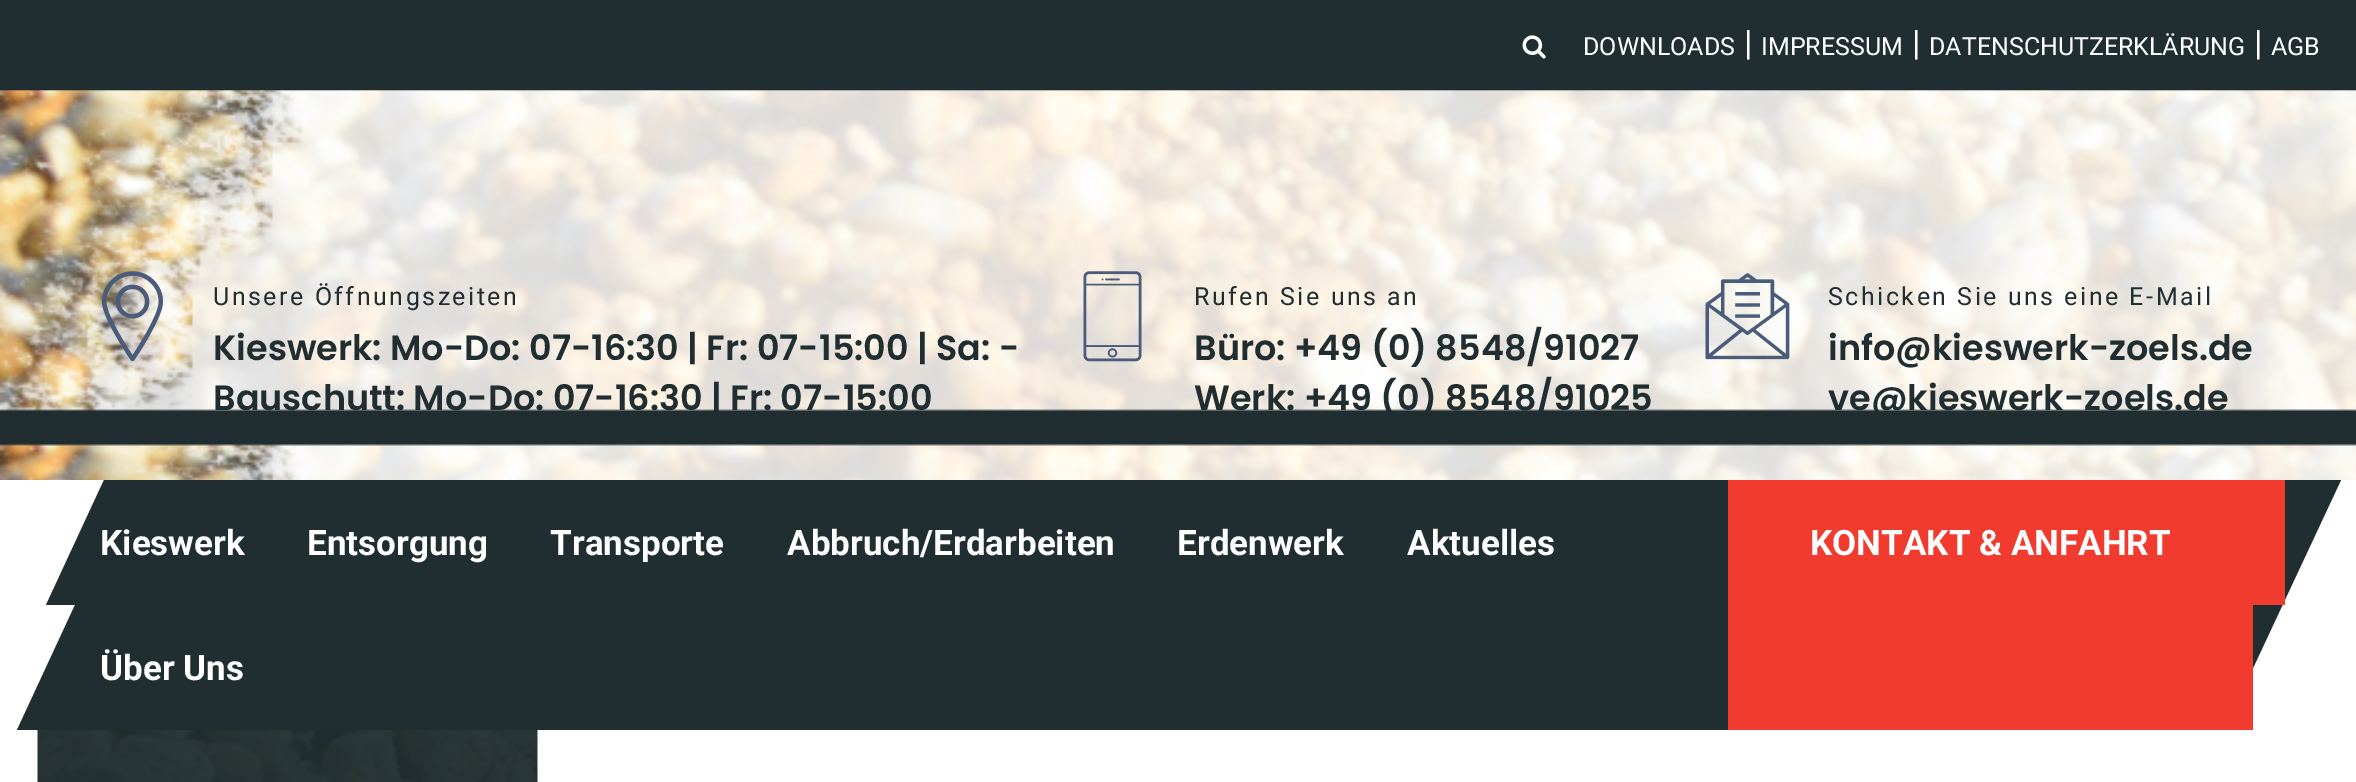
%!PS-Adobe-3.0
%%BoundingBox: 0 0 2356 782
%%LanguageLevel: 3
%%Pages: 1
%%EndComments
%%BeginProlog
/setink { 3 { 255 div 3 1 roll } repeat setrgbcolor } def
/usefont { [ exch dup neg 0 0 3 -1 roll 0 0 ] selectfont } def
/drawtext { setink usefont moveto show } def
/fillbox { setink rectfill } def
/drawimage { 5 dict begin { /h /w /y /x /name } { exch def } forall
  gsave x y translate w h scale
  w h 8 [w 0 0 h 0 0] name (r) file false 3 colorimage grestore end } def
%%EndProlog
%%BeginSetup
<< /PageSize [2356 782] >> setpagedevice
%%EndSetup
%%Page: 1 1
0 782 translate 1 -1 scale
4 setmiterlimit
0 0 2356 782 255 255 255 fillbox
0 0 2356 90 32 46 49 fillbox
(assets/img1.rgb) 1522 35 24 24 drawimage
(DOWNLOADS) 1583 55 /Roboto-Regular 25 255 255 255 drawtext
(|) 1744 55 /Roboto-Regular 35 255 255 255 drawtext
(IMPRESSUM) 1761 55 /Roboto-Regular 25 255 255 255 drawtext
(|) 1912 55 /Roboto-Regular 35 255 255 255 drawtext
(DATENSCHUTZERKLÄRUNG) 1929 55 /Roboto-Regular 25 255 255 255 drawtext
(|) 2254 55 /Roboto-Regular 35 255 255 255 drawtext
(AGB) 2271 55 /Roboto-Regular 25 255 255 255 drawtext
(assets/img2.rgb) 0 90 2356 390 drawimage
(assets/img3.rgb) 101 271 63 91 drawimage
32 46 49 setink
213 305 moveto 2.5 0 (Unsere Öffnungszeiten) ashow
(Kieswerk: Mo-Do: 07-16:30 | Fr: 07-15:00 | Sa: -) 213 360 /Poppins-SemiBold 35 32 46 49 drawtext
(Bauschutt: Mo-Do: 07-16:30 | Fr: 07-15:00) 213 410 /Poppins-SemiBold 35 32 46 49 drawtext
(assets/img4.rgb) 1083 271 59 91 drawimage
/Roboto-Regular 25 usefont
1194 305 moveto 2.5 0 (Rufen Sie uns an) ashow
(Büro: +49 \(0\) 8548/91027) 1194 360 /Poppins-SemiBold 35 32 46 49 drawtext
(Werk: +49 \(0\) 8548/91025) 1194 410 /Poppins-SemiBold 35 32 46 49 drawtext
(assets/img5.rgb) 1705 273 85 87 drawimage
/Roboto-Regular 25 usefont
1828 305 moveto 2.5 0 (Schicken Sie uns eine E-Mail) ashow
(info@kieswerk-zoels.de) 1828 360 /Poppins-SemiBold 35 32 46 49 drawtext
(ve@kieswerk-zoels.de) 1828 410 /Poppins-SemiBold 35 32 46 49 drawtext
133 480 moveto 2341 480 lineto 2224 730 lineto 17 730 lineto closepath fill
104 480 moveto 299 480 lineto 240 605 lineto 46 605 lineto closepath fill
(Kieswerk) 100 555 /Roboto-Bold 35 255 255 255 drawtext
(Entsorgung) 307 555 /Roboto-Bold 35 255 255 255 drawtext
(Transporte) 550 555 /Roboto-Bold 35 255 255 255 drawtext
(Abbruch/Erdarbeiten) 787 555 /Roboto-Bold 35 255 255 255 drawtext
(Erdenwerk) 1177 555 /Roboto-Bold 35 255 255 255 drawtext
(Aktuelles) 1407 555 /Roboto-Bold 35 255 255 255 drawtext
(Über Uns) 100 680 /Roboto-Bold 35 255 255 255 drawtext
1728 480 525 250 241 59 46 fillbox
(KONTAKT & ANFAHRT) 1810 555 /Roboto-Bold 35 255 255 255 drawtext
2253 480 32 125 241 59 46 fillbox
(assets/img6.rgb) 37 730 501 52 drawimage
showpage
%%EOF
